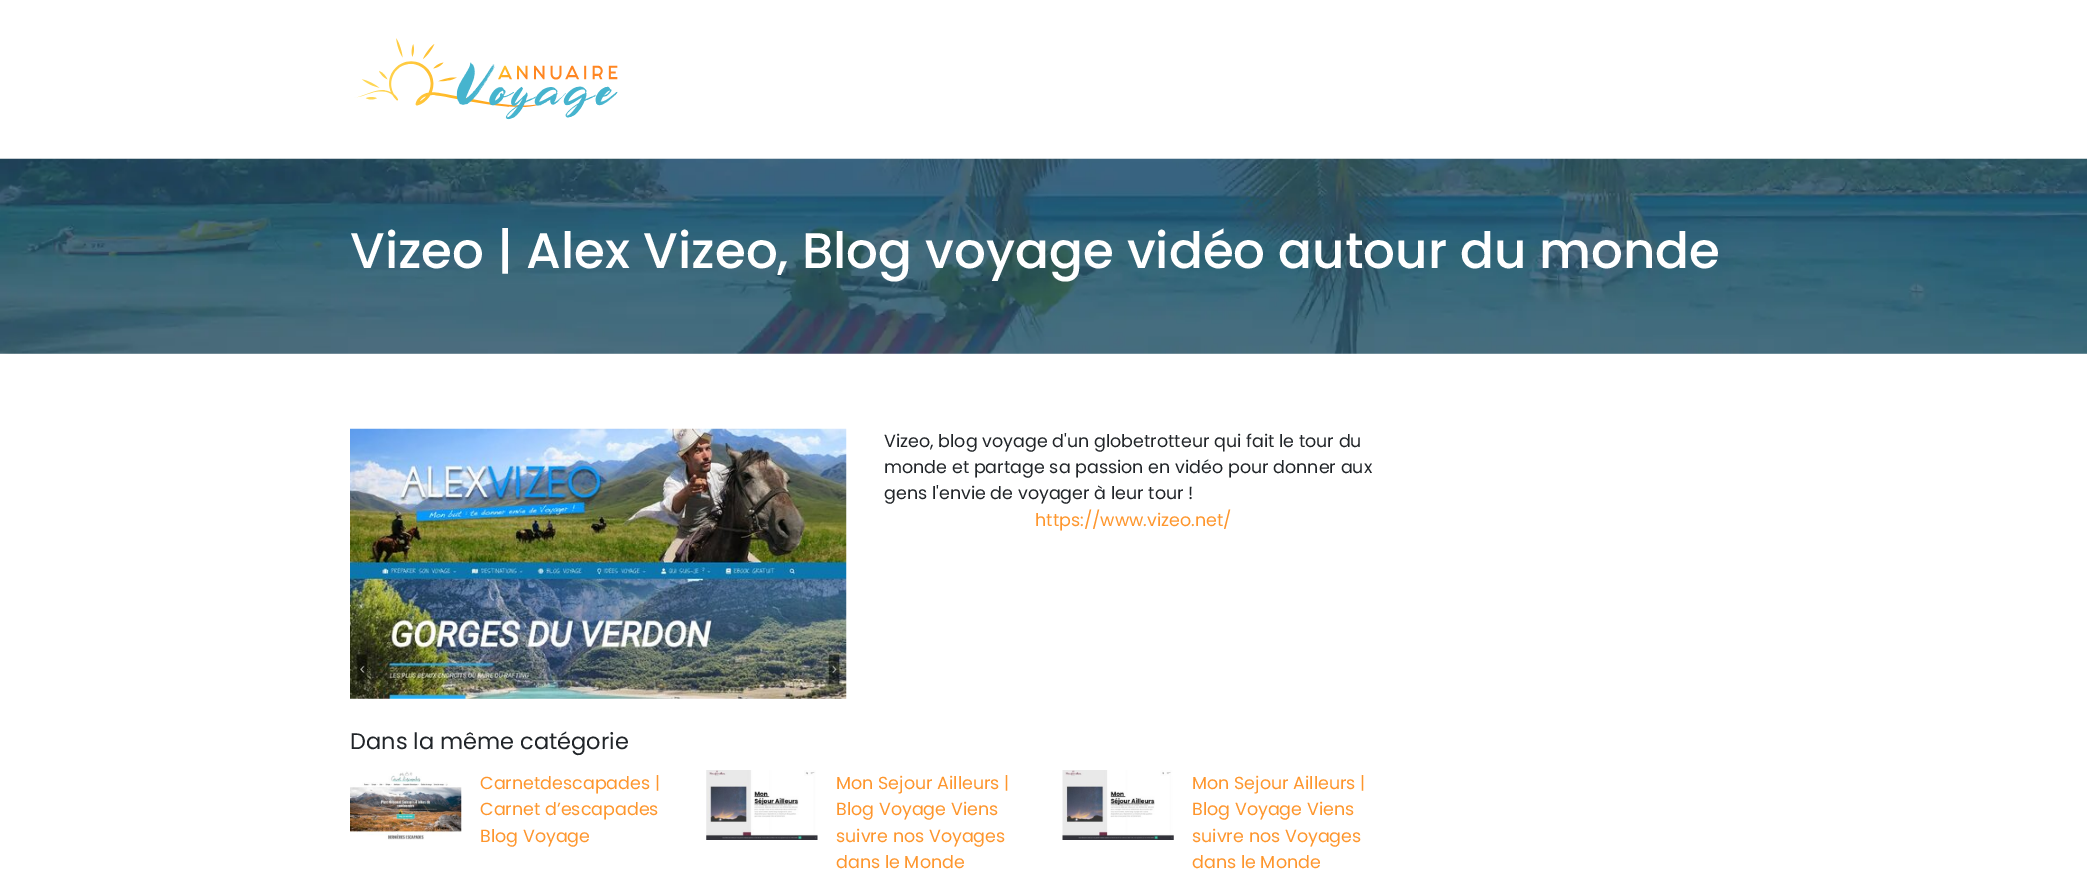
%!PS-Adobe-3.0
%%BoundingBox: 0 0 2087 876
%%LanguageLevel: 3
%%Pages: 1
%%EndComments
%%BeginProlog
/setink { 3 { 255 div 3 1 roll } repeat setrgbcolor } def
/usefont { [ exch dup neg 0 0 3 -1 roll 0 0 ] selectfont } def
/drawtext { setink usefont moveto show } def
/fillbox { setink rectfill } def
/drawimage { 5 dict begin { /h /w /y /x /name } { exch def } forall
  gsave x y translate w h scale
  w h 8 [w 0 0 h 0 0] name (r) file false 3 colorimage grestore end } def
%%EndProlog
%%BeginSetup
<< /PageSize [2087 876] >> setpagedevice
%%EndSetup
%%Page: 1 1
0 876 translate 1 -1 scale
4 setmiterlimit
0 0 2087 876 255 255 255 fillbox
(assets/img1.rgb) 354 38 264 82 drawimage
(assets/img2.rgb) 0 158 2087 196 drawimage
(Vizeo | Alex Vizeo, Blog voyage vidéo autour du monde) 350 268 /Poppins-Medium 50 255 255 255 drawtext
(assets/img3.rgb) 350 428 497 271 drawimage
(Vizeo, blog voyage d'un globetrotteur qui fait le tour du) 884 447 /Poppins-Regular 17.5 33 37 41 drawtext
(monde et partage sa passion en vidéo pour donner aux) 884 473 /Poppins-Regular 17.5 33 37 41 drawtext
(gens l'envie de voyager à leur tour !) 884 499 /Poppins-Regular 17.5 33 37 41 drawtext
(https://www.vizeo.net/) 1035 526 /Poppins-Regular 17.5 254 150 45 drawtext
(Dans la même catégorie) 350 749 /Poppins-Regular 22.5 33 37 41 drawtext
(assets/img4.rgb) 350 771 112 69 drawimage
(Carnetdescapades |) 480 789 /Poppins-Regular 17.5 254 150 45 drawtext
(Carnet d’escapades) 480 815 /Poppins-Regular 17.5 254 150 45 drawtext
(Blog Voyage) 480 842 /Poppins-Regular 17.5 254 150 45 drawtext
(assets/img5.rgb) 706 770 112 70 drawimage
(Mon Sejour Ailleurs |) 836 789 /Poppins-Regular 17.5 254 150 45 drawtext
(Blog Voyage Viens) 836 815 /Poppins-Regular 17.5 254 150 45 drawtext
(suivre nos Voyages) 836 842 /Poppins-Regular 17.5 254 150 45 drawtext
(dans le Monde) 836 868 /Poppins-Regular 17.5 254 150 45 drawtext
(assets/img6.rgb) 1062 770 112 70 drawimage
(Mon Sejour Ailleurs |) 1192 789 /Poppins-Regular 17.5 254 150 45 drawtext
(Blog Voyage Viens) 1192 815 /Poppins-Regular 17.5 254 150 45 drawtext
(suivre nos Voyages) 1192 842 /Poppins-Regular 17.5 254 150 45 drawtext
(dans le Monde) 1192 868 /Poppins-Regular 17.5 254 150 45 drawtext
showpage
%%EOF
